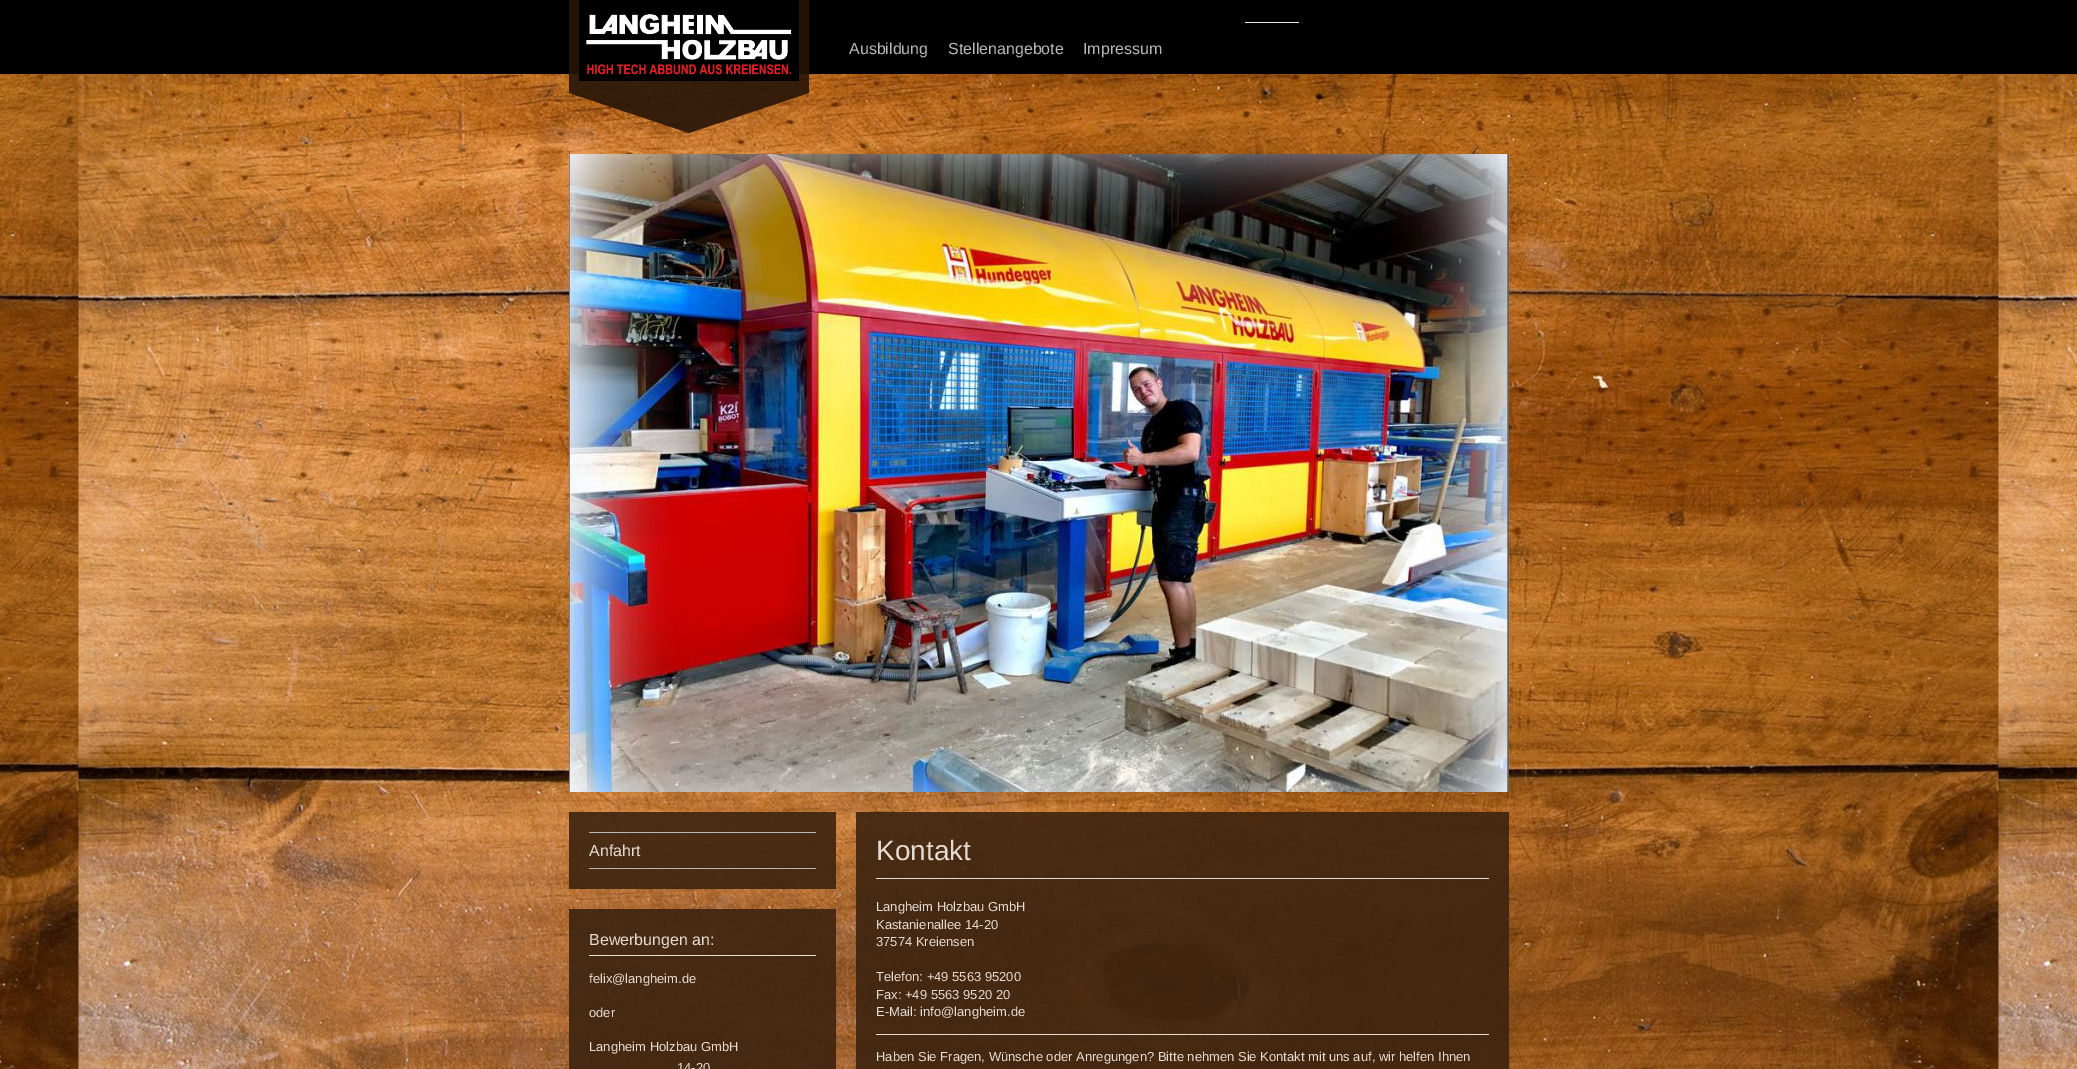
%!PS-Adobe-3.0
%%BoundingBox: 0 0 2077 1069
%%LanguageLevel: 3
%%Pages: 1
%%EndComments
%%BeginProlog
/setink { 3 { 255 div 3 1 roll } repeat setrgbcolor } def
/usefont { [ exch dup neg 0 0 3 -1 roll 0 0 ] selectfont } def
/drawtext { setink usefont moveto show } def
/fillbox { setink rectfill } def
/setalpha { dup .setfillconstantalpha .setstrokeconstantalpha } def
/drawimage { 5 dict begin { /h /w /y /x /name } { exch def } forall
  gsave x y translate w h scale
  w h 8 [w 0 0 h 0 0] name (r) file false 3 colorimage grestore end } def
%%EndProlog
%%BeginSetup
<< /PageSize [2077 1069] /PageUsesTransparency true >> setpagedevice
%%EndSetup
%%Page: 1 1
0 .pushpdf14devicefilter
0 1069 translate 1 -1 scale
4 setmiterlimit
0 0 2077 1069 255 255 255 fillbox
(assets/img1.rgb) 0 74 2077 995 drawimage
0 0 2077 74 0 0 0 fillbox
0.9 setalpha
569 0 240 93 39 21 8 fillbox
1 setalpha
(assets/img2.rgb) 579 0 220 81 drawimage
0.9 setalpha
569 93 moveto 809 93 lineto 689 133 lineto closepath fill
1 setalpha
1245 22 54 1 230 230 230 fillbox
(Ausbildung) 849 54 /LiberationSans-Regular 16 184 184 184 drawtext
(Stellenangebote) 948 54 /LiberationSans-Regular 16 184 184 184 drawtext
(Impressum) 1083 54 /LiberationSans-Regular 16 184 184 184 drawtext
(assets/img3.rgb) 569 154 940 638 drawimage
0.9 setalpha
569 812 267 77 60 35 15 fillbox
1 setalpha
589 832 227 1 184 184 184 fillbox
589 868 227 1 184 184 184 fillbox
0.1 setalpha
0 0 0 setink
816 868 moveto 589 868 lineto 589 867 lineto 812 867 lineto closepath fill
1 setalpha
(Anfahrt) 589 856 /LiberationSans-Regular 16 231 220 212 drawtext
0.9 setalpha
569 909 267 160 60 35 15 fillbox
1 setalpha
589 955 227 1 231 220 212 fillbox
(Bewerbungen an:) 589 945 /LiberationSans-Regular 16 231 220 212 drawtext
(felix@langheim.de) 589 983 /LiberationSans-Regular 13 231 220 212 drawtext
(oder) 589 1017 /LiberationSans-Regular 13 231 220 212 drawtext
(Langheim Holzbau GmbH) 589 1051 /LiberationSans-Regular 13 231 220 212 drawtext
(14-20) 677 1072 /LiberationSans-Regular 13 231 220 212 drawtext
0.9 setalpha
856 812 653 257 60 35 15 fillbox
1 setalpha
876 878 613 1 231 220 212 fillbox
(Kontakt) 876 860 /LiberationSans-Regular 28 231 220 212 drawtext
(Langheim Holzbau GmbH) 876 911 /LiberationSans-Regular 13 231 220 212 drawtext
(Kastanienallee 14-20) 876 929 /LiberationSans-Regular 13 231 220 212 drawtext
(37574 Kreiensen) 876 946 /LiberationSans-Regular 13 231 220 212 drawtext
(Telefon: +49 5563 95200) 876 981 /LiberationSans-Regular 13 231 220 212 drawtext
(Fax: +49 5563 9520 20) 876 999 /LiberationSans-Regular 13 231 220 212 drawtext
(E-Mail: info@langheim.de) 876 1016 /LiberationSans-Regular 13 231 220 212 drawtext
876 1034 613 1 231 220 212 fillbox
(Haben Sie Fragen, Wünsche oder Anregungen? Bitte nehmen Sie Kontakt mit uns auf, wir helfen Ihnen) 876 1061 /LiberationSans-Regular 13 231 220 212 drawtext
.poppdf14devicefilter showpage
%%EOF
